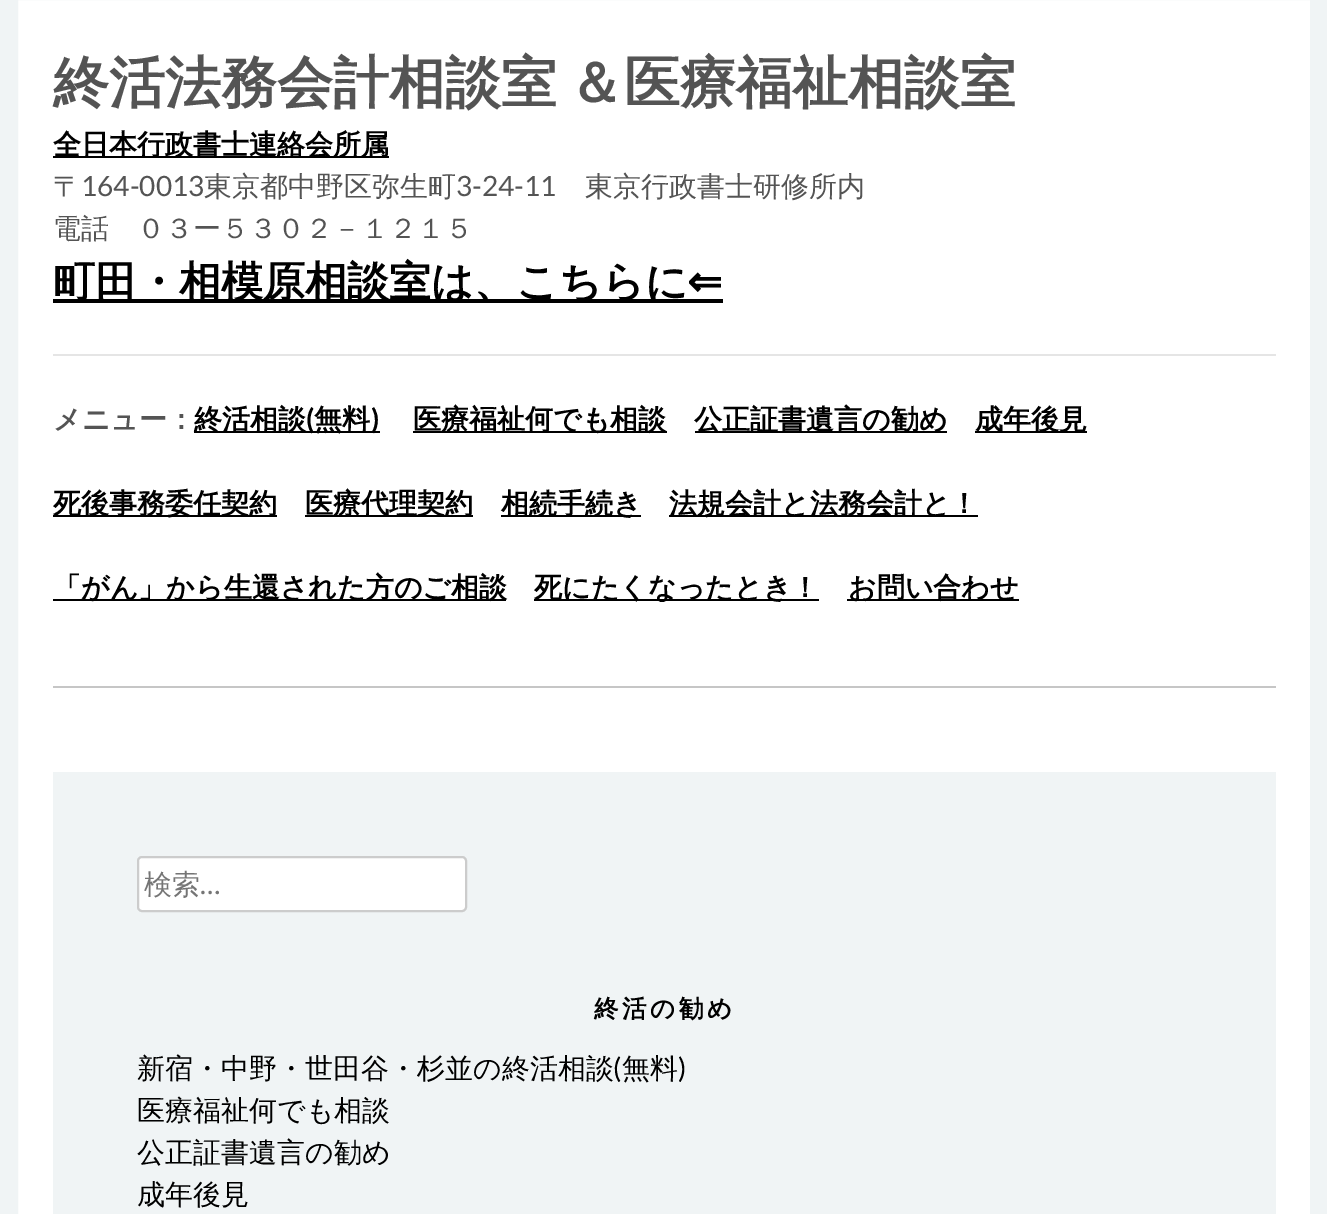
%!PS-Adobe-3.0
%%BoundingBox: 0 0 1327 1214
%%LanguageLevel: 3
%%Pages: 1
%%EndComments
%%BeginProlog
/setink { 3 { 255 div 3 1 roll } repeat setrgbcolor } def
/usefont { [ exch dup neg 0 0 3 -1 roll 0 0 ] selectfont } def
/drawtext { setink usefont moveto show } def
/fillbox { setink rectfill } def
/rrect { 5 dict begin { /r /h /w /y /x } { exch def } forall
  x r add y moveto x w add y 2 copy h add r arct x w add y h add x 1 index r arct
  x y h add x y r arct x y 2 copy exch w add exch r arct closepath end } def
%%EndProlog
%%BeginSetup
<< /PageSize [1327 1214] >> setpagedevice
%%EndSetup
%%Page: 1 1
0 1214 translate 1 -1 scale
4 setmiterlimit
0 0 1327 1214 255 255 255 fillbox
240 244 245 setink
18 setlinewidth
9 -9 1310 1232 rectstroke
/WenQuanYiZenHei-Bold 56 usefont
84 84 84 setink
53 102 moveto -6 0 32 (終活法務会計相談室 ＆医療福祉相談室) widthshow
53 156 336 2 0 0 0 fillbox
(全日本行政書士連絡会所属) 53 154 /WenQuanYiZenHei-Bold 28 0 0 0 drawtext
(〒) 53 196 /WenQuanYiZenHei-Medium 28 84 84 84 drawtext
(164-0013) 81 196 /Lato-Regular 28 84 84 84 drawtext
(東京都中野区弥生町) 204 196 /WenQuanYiZenHei-Medium 28 84 84 84 drawtext
(3-24-11) 456 196 /Lato-Regular 28 84 84 84 drawtext
(東京行政書士研修所内) 585 196 /WenQuanYiZenHei-Medium 28 84 84 84 drawtext
(電話　０３ー５３０２－１２１５) 53 238 /WenQuanYiZenHei-Medium 28 84 84 84 drawtext
53 299 670 4 0 0 0 fillbox
(町田・相模原相談室は、こちらに) 53 296 /WenQuanYiZenHei-Bold 42 0 0 0 drawtext
(⇐) 687 296 /DejaVuSans-Bold 42 0 0 0 drawtext
53 354 1223 2 229 229 229 fillbox
194 431 186 2 0 0 0 fillbox
(終活相談 無料) 194 429 /WenQuanYiZenHei-Bold 28 0 0 0 drawtext
413 431 254 2 0 0 0 fillbox
(医療福祉何でも相談) 413 429 /WenQuanYiZenHei-Bold 28 0 0 0 drawtext
695 431 252 2 0 0 0 fillbox
(公正証書遺言の勧め) 694 429 /WenQuanYiZenHei-Bold 28 0 0 0 drawtext
975 431 112 2 0 0 0 fillbox
(成年後見) 975 429 /WenQuanYiZenHei-Bold 28 0 0 0 drawtext
(メニュー：) 53 429 /WenQuanYiZenHei-Bold 28 84 84 84 drawtext
(\() 306 429 /Lato-Bold 28 0 0 0 drawtext
(\)) 371 429 /Lato-Bold 28 0 0 0 drawtext
53 515 224 2 0 0 0 fillbox
(死後事務委任契約) 53 513 /WenQuanYiZenHei-Bold 28 0 0 0 drawtext
305 515 168 2 0 0 0 fillbox
(医療代理契約) 305 513 /WenQuanYiZenHei-Bold 28 0 0 0 drawtext
501 515 140 2 0 0 0 fillbox
(相続手続き) 501 513 /WenQuanYiZenHei-Bold 28 0 0 0 drawtext
669 515 309 2 0 0 0 fillbox
(法規会計と法務会計と！) 669 513 /WenQuanYiZenHei-Bold 28 0 0 0 drawtext
53 599 453 2 0 0 0 fillbox
(「がん」から生還された方のご相談) 53 597 /WenQuanYiZenHei-Bold 28 0 0 0 drawtext
534 599 285 2 0 0 0 fillbox
(死にたくなったとき！) 534 597 /WenQuanYiZenHei-Bold 28 0 0 0 drawtext
847 599 172 2 0 0 0 fillbox
(お問い合わせ) 848 597 /WenQuanYiZenHei-Bold 28 0 0 0 drawtext
53 686 1223 2 198 198 198 fillbox
53 772 1223 442 240 244 245 fillbox
255 255 255 setink
138 857 328 54 4 rrect gsave fill grestore
204 204 204 setink
2 setlinewidth
stroke
(検索) 144 894 /WenQuanYiZenHei-Medium 28 117 117 117 drawtext
(…) 200 894 /Lato-Regular 28 117 117 117 drawtext
/WenQuanYiZenHei-Bold 24.5 usefont
0 0 0 setink
594 1017 moveto 3.5 0 (終活の勧め) ashow
(新宿・中野・世田谷・杉並の終活相談 無料) 137 1078 /WenQuanYiZenHei-Medium 28 0 0 0 drawtext
(\() 613 1078 /Lato-Regular 28 0 0 0 drawtext
(\)) 678 1078 /Lato-Regular 28 0 0 0 drawtext
(医療福祉何でも相談) 137 1120 /WenQuanYiZenHei-Medium 28 0 0 0 drawtext
(公正証書遺言の勧め) 137 1162 /WenQuanYiZenHei-Medium 28 0 0 0 drawtext
(成年後見) 137 1204 /WenQuanYiZenHei-Medium 28 0 0 0 drawtext
showpage
%%EOF
